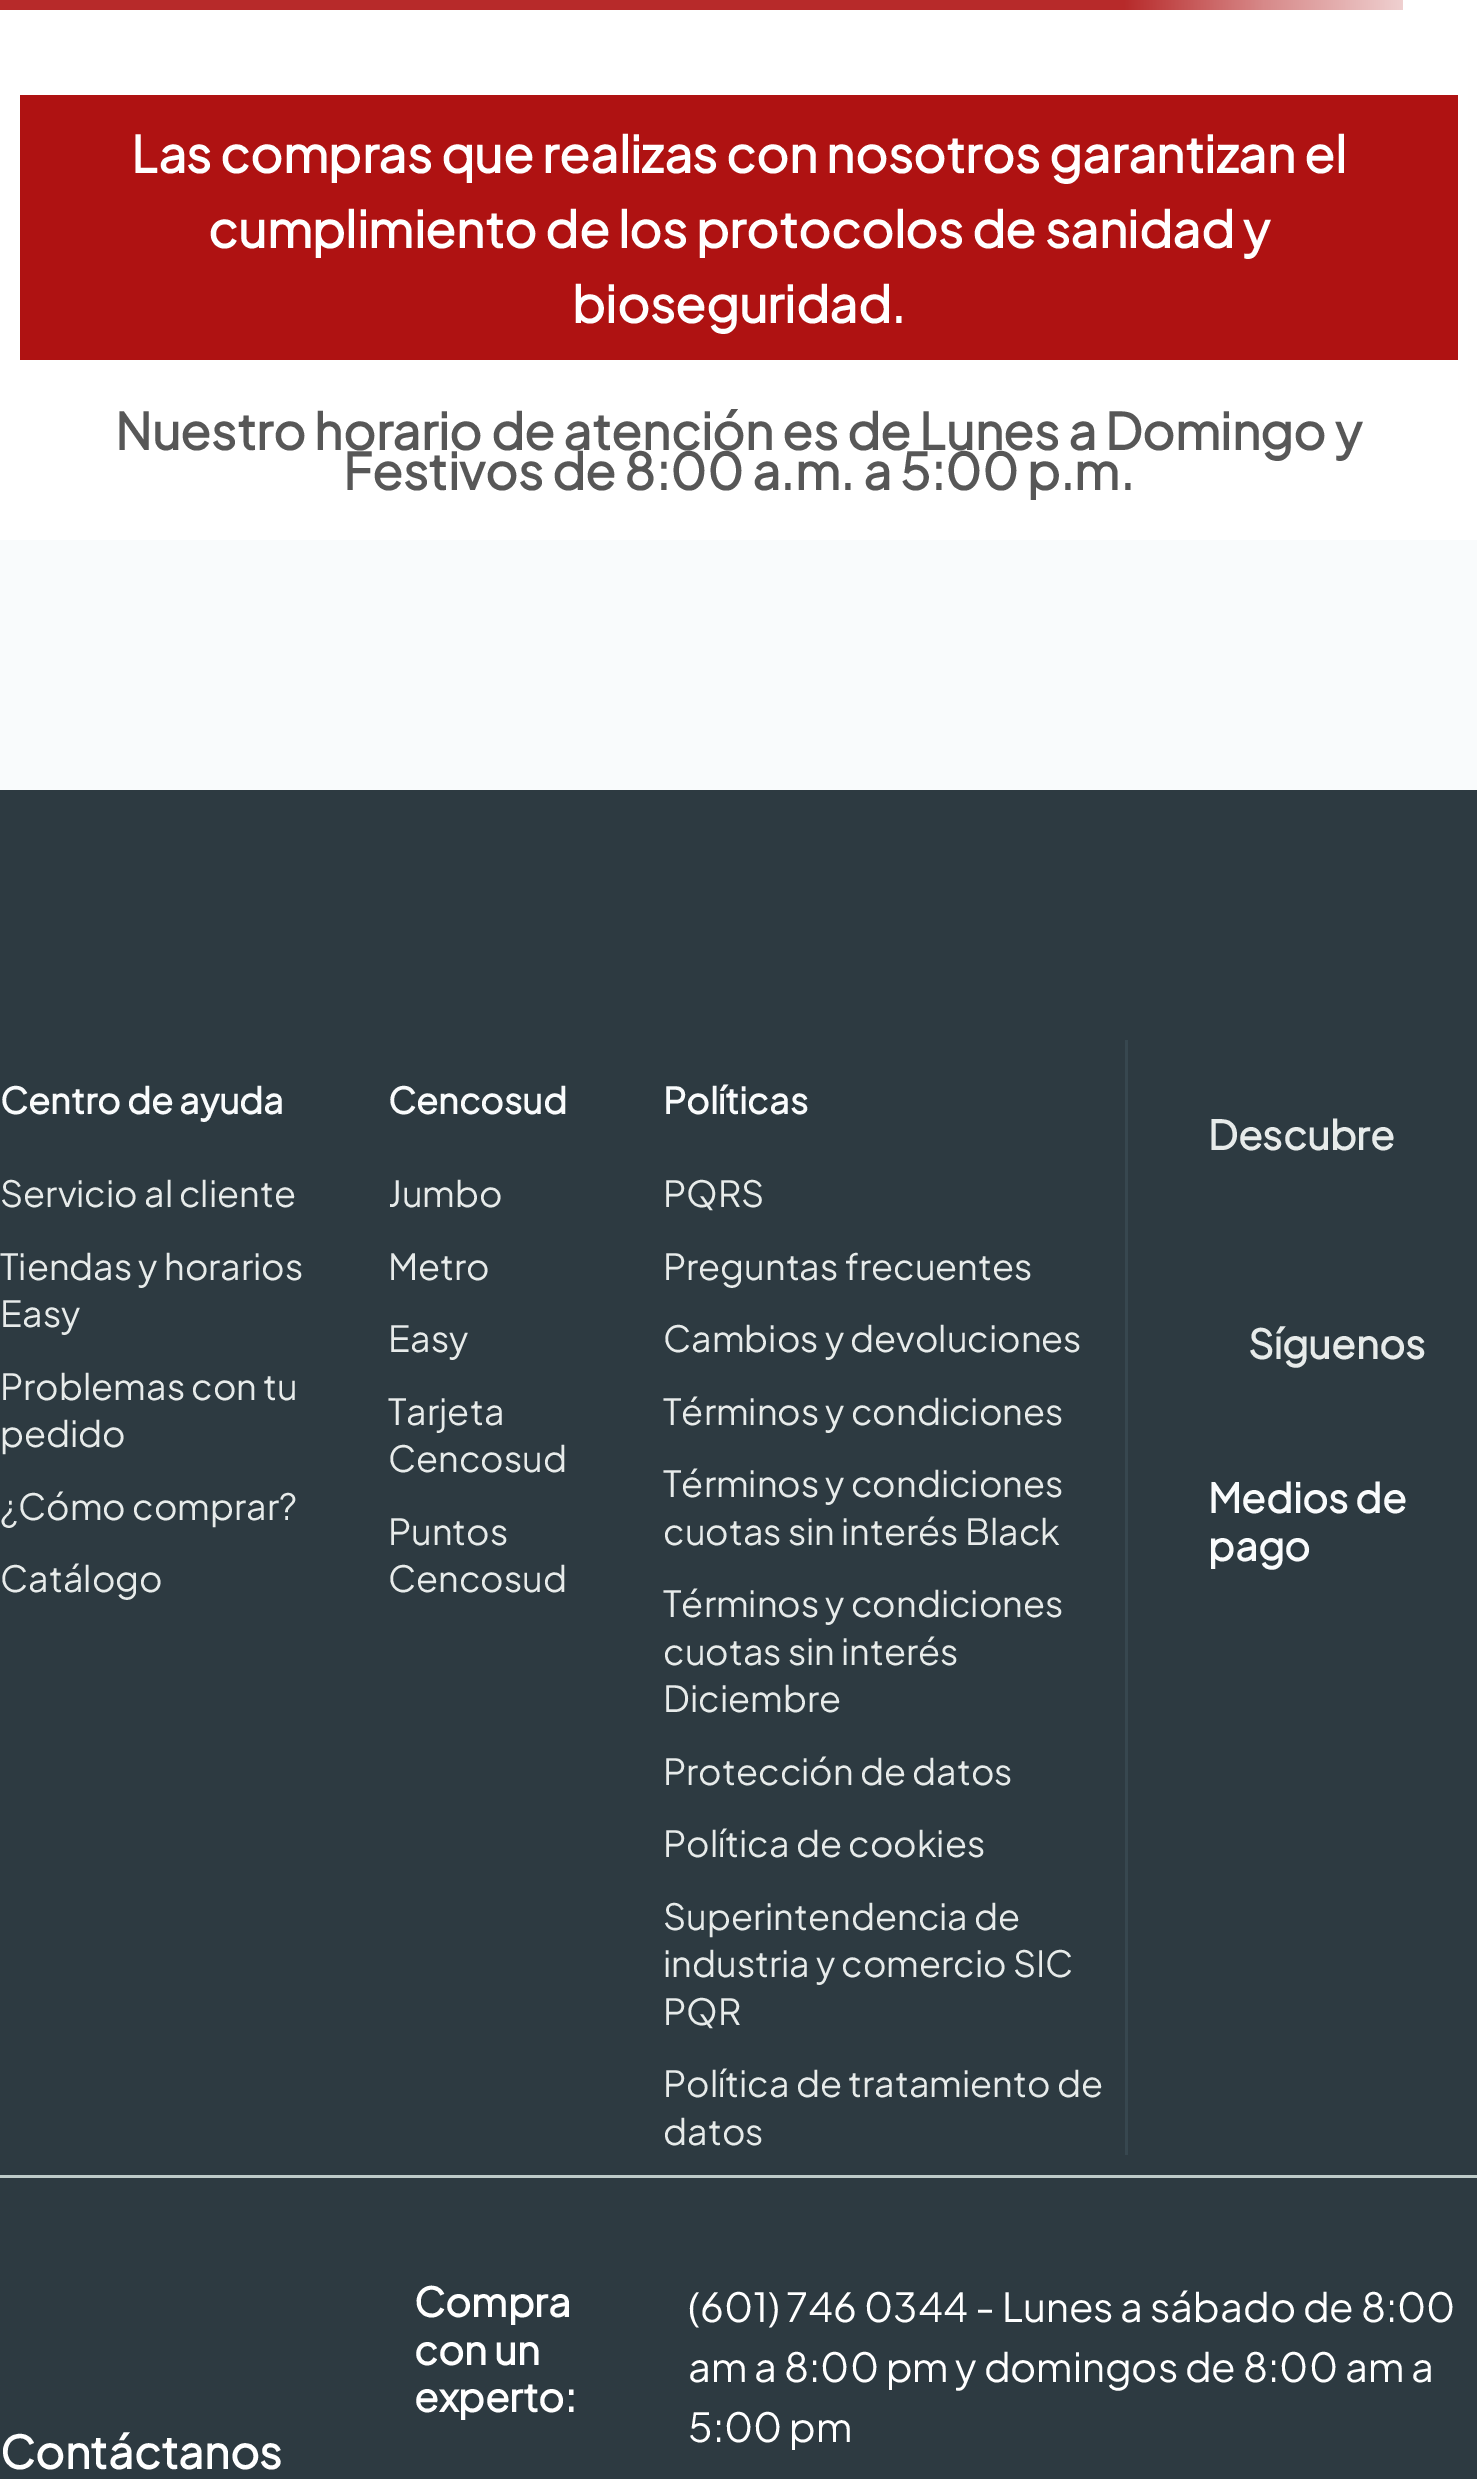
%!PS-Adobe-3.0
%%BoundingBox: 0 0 1477 2479
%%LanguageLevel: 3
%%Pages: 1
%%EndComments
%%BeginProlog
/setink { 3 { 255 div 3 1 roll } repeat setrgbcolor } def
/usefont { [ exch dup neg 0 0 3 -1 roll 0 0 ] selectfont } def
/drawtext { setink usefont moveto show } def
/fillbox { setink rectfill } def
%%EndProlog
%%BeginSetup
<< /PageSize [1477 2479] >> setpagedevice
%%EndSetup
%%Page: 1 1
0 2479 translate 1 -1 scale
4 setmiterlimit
0 0 1477 2479 255 255 255 fillbox
gsave 0 0 moveto 1403 0 lineto 1403 10 lineto 0 10 lineto closepath clip newpath
<< /ShadingType 2 /ColorSpace /DeviceRGB /Coords [0 5 1404 5] /Extend [true true] /Function << /FunctionType 3 /Domain [0 1] /Functions [<< /FunctionType 2 /Domain [0 1] /C0 [0.718 0.165 0.165] /C1 [0.718 0.165 0.165] /N 1 >> << /FunctionType 2 /Domain [0 1] /C0 [0.718 0.165 0.165] /C1 [0.843 0.537 0.537] /N 1 >> << /FunctionType 2 /Domain [0 1] /C0 [0.843 0.537 0.537] /C1 [0.937 0.816 0.816] /N 1 >>] /Bounds [0.8 0.9] /Encode [0 1 0 1 0 1] >> >> shfill grestore
20 95 1438 265 175 18 18 fillbox
(Las compras que realizas con nosotros garantizan el) 131 173 /PlusJakartaSans-Bold 50 255 255 255 drawtext
(cumplimiento de los protocolos de sanidad y) 208 248 /PlusJakartaSans-Bold 50 255 255 255 drawtext
(bioseguridad.) 572 323 /PlusJakartaSans-Bold 50 255 255 255 drawtext
(Nuestro horario de atención es de Lunes a Domingo y) 115 450 /PlusJakartaSans-Bold 50 87 87 87 drawtext
(Festivos de 8:00 a.m. a 5:00 p.m.) 343 490 /PlusJakartaSans-Bold 50 87 87 87 drawtext
0 790 1477 1689 45 58 65 fillbox
0 540 1477 250 249 251 252 fillbox
(Centro de ayuda) 0 1114 /PlusJakartaSans-Bold 36 249 251 252 drawtext
(Servicio al cliente) 0 1207 /PlusJakartaSans-Regular 36 231 235 234 drawtext
(Tiendas y horarios) 0 1280 /PlusJakartaSans-Regular 36 231 235 234 drawtext
(Easy) 0 1327 /PlusJakartaSans-Regular 36 231 235 234 drawtext
(Problemas con tu) 0 1400 /PlusJakartaSans-Regular 36 231 235 234 drawtext
(pedido) 0 1447 /PlusJakartaSans-Regular 36 231 235 234 drawtext
(¿Cómo comprar?) 0 1520 /PlusJakartaSans-Regular 36 231 235 234 drawtext
(Catálogo) 0 1592 /PlusJakartaSans-Regular 36 231 235 234 drawtext
(Cencosud) 388 1114 /PlusJakartaSans-Bold 36 249 251 252 drawtext
(Jumbo) 388 1207 /PlusJakartaSans-Regular 36 231 235 234 drawtext
(Metro) 388 1280 /PlusJakartaSans-Regular 36 231 235 234 drawtext
(Easy) 388 1352 /PlusJakartaSans-Regular 36 231 235 234 drawtext
(Tarjeta) 388 1425 /PlusJakartaSans-Regular 36 231 235 234 drawtext
(Cencosud) 388 1472 /PlusJakartaSans-Regular 36 231 235 234 drawtext
(Puntos) 388 1545 /PlusJakartaSans-Regular 36 231 235 234 drawtext
(Cencosud) 388 1592 /PlusJakartaSans-Regular 36 231 235 234 drawtext
(Políticas) 663 1114 /PlusJakartaSans-Bold 36 249 251 252 drawtext
(PQRS) 663 1207 /PlusJakartaSans-Regular 36 231 235 234 drawtext
(Preguntas frecuentes) 663 1280 /PlusJakartaSans-Regular 36 231 235 234 drawtext
(Cambios y devoluciones) 663 1352 /PlusJakartaSans-Regular 36 231 235 234 drawtext
(Términos y condiciones) 663 1425 /PlusJakartaSans-Regular 36 231 235 234 drawtext
(Términos y condiciones) 663 1497 /PlusJakartaSans-Regular 36 231 235 234 drawtext
(cuotas sin interés Black) 663 1545 /PlusJakartaSans-Regular 36 231 235 234 drawtext
(Términos y condiciones) 663 1617 /PlusJakartaSans-Regular 36 231 235 234 drawtext
(cuotas sin interés) 663 1665 /PlusJakartaSans-Regular 36 231 235 234 drawtext
(Diciembre) 663 1712 /PlusJakartaSans-Regular 36 231 235 234 drawtext
(Protección de datos) 663 1785 /PlusJakartaSans-Regular 36 231 235 234 drawtext
(Política de cookies) 663 1857 /PlusJakartaSans-Regular 36 231 235 234 drawtext
(Superintendencia de) 663 1930 /PlusJakartaSans-Regular 36 231 235 234 drawtext
(industria y comercio SIC) 663 1977 /PlusJakartaSans-Regular 36 231 235 234 drawtext
(PQR) 663 2025 /PlusJakartaSans-Regular 36 231 235 234 drawtext
(Política de tratamiento de) 663 2097 /PlusJakartaSans-Regular 36 231 235 234 drawtext
(datos) 663 2145 /PlusJakartaSans-Regular 36 231 235 234 drawtext
1125 1040 3 1115 55 71 79 fillbox
(Descubre) 1208 1150 /PlusJakartaSans-Bold 40 231 235 234 drawtext
(Síguenos) 1248 1359 /PlusJakartaSans-Bold 40 231 235 234 drawtext
(Medios de) 1208 1513 /PlusJakartaSans-Bold 40 249 251 252 drawtext
(pago) 1208 1561 /PlusJakartaSans-Bold 40 249 251 252 drawtext
0 2175 1477 3 190 203 201 fillbox
(Contáctanos) 0 2469 /PlusJakartaSans-Bold 45 255 255 255 drawtext
(Compra) 414 2317 /PlusJakartaSans-Bold 40 255 255 255 drawtext
(con un) 414 2365 /PlusJakartaSans-Bold 40 255 255 255 drawtext
(experto:) 414 2412 /PlusJakartaSans-Bold 40 255 255 255 drawtext
(\(601\) 746 0344 - Lunes a sábado de 8:00) 688 2322 /PlusJakartaSans-Regular 40 255 255 255 drawtext
(am a 8:00 pm y domingos de 8:00 am a) 688 2382 /PlusJakartaSans-Regular 40 255 255 255 drawtext
(5:00 pm) 688 2442 /PlusJakartaSans-Regular 40 255 255 255 drawtext
showpage
%%EOF
